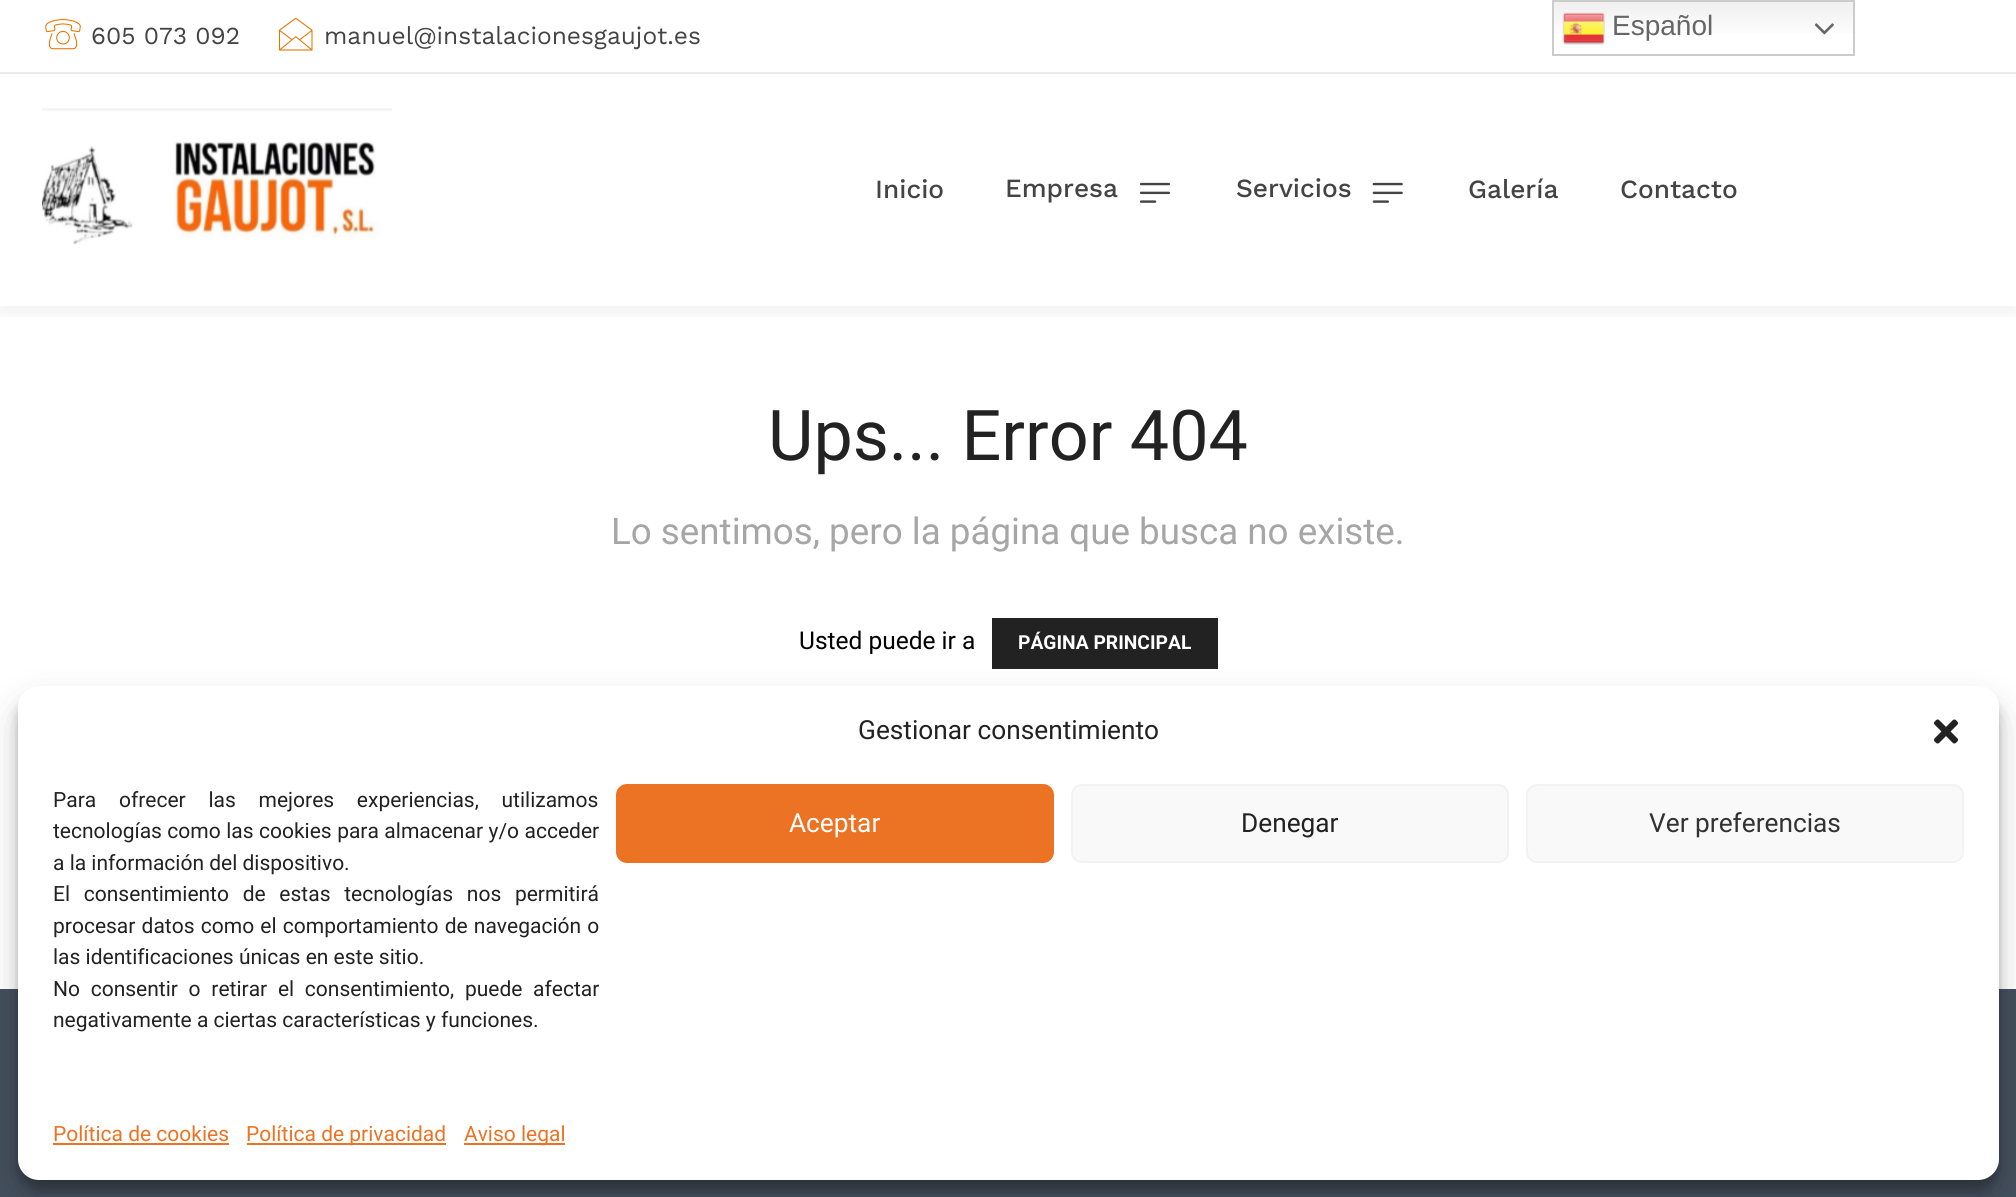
import math
import cairo


def write_spaced(ctx, x, y, s, letter, word):
	ctx.move_to(x, y)
	for ch in s:
		ctx.show_text(ch)
		ctx.rel_move_to(letter + word * (ch == ' '), 0)

def round_path(ctx, x, y, w, h, r):
	ctx.new_sub_path()
	for i, (u, v) in enumerate([(x + w - r, y + h - r), (x + r, y + h - r), (x + r, y + r), (x + w - r, y + r)]):
		ctx.arc(u, v, r, i * math.pi / 2, (i + 1) * math.pi / 2)
	ctx.close_path()

def blur_box(ctx, x, y, w, h, r, blur, alpha):
	ctx.push_group_with_content(cairo.CONTENT_ALPHA)
	ctx.set_operator(cairo.OPERATOR_SOURCE)
	for i in range(15, -16, -2):
		e = blur * i / 6
		if min(w, h) + 2 * e > 0:
			ctx.set_source_rgba(0, 0, 0, alpha * math.erfc((i - 1) / 8.5) / 2)
			round_path(ctx, x - e, y - e, w + 2 * e, h + 2 * e, max(0, min(r + e + blur * .6, min(w, h) / 2 + e)))
			ctx.fill()
	ctx.mask(ctx.pop_group())

def paste(ctx, path, x, y, w, h):
	ctx.save()
	ctx.set_source_surface(cairo.ImageSurface.create_from_png(path), x, y)
	ctx.rectangle(x, y, w, h)
	ctx.fill()
	ctx.restore()

def draw(ctx):
	ctx.set_source_rgb(1, 1, 1)
	ctx.paint()
	paste(ctx, 'media/3.png', 45, 19, 36, 31)
	paste(ctx, 'media/4.png', 278, 17, 35, 34)
	ctx.set_source_rgb(0.918, 0.918, 0.918)
	ctx.rectangle(0, 72, 2016, 2)
	ctx.fill()
	paste(ctx, 'media/5.png', 42, 108, 350, 137)
	ctx.save()
	ctx.rectangle(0, 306, 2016, 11)
	ctx.clip()
	ctx.set_source_rgb(0, 0, 0)
	blur_box(ctx, 0, 7, 2016, 306, 0, 9, 0.06)
	ctx.restore()
	gradient = cairo.LinearGradient(1704, 0, 1704, 56)
	gradient.add_color_stop_rgba(0, 0.937, 0.937, 0.937, 1)
	gradient.add_color_stop_rgba(0.7, 1, 1, 1, 1)
	ctx.set_source(gradient)
	ctx.rectangle(1554, 2, 299, 31)
	ctx.fill()
	ctx.rectangle(1553, 1, 301, 54)
	ctx.set_source_rgb(0.8, 0.8, 0.8)
	ctx.stroke()
	paste(ctx, 'media/1.png', 1562, 12, 43, 33)
	ctx.select_font_face('Liberation Sans')
	ctx.set_font_size(28)
	ctx.set_source_rgb(0.4, 0.4, 0.4)
	ctx.move_to(1612, 35)
	ctx.show_text('Español')
	paste(ctx, 'media/2.png', 1815, 23, 19, 12)
	ctx.select_font_face('Work Sans')
	ctx.set_font_size(24.5)
	ctx.set_source_rgb(0.267, 0.267, 0.267)
	ctx.move_to(91, 44)
	ctx.show_text('605 073 092')
	ctx.move_to(324, 44)
	ctx.show_text('manuel@instalacionesgaujot.es')
	ctx.select_font_face('Work Sans Medium')
	ctx.set_font_size(26.25)
	ctx.move_to(875, 198)
	ctx.show_text('Inicio')
	ctx.move_to(1005, 197)
	ctx.show_text('Empresa')
	paste(ctx, 'media/6.png', 1139, 182, 32, 21)
	ctx.move_to(1236, 197)
	ctx.show_text('Servicios')
	paste(ctx, 'media/7.png', 1372, 182, 31, 21)
	ctx.move_to(1468, 198)
	ctx.show_text('Galería')
	ctx.move_to(1620, 198)
	ctx.show_text('Contacto')
	ctx.select_font_face('Roboto')
	ctx.set_font_size(70)
	ctx.set_source_rgb(0.133, 0.133, 0.133)
	ctx.move_to(768, 460)
	ctx.show_text('Ups... Error 404')
	ctx.set_font_size(36.75)
	ctx.set_source_rgb(0.651, 0.651, 0.651)
	ctx.move_to(611, 544)
	ctx.show_text('Lo sentimos, pero la página que busca no existe.')
	ctx.set_font_size(24.5)
	ctx.set_source_rgb(0, 0, 0)
	ctx.move_to(799, 649)
	ctx.show_text('Usted puede ir a')
	ctx.set_source_rgb(0.133, 0.133, 0.133)
	ctx.rectangle(992, 618, 226, 51)
	ctx.fill()
	ctx.select_font_face('Roboto', cairo.FONT_SLANT_NORMAL, cairo.FONT_WEIGHT_BOLD)
	ctx.set_font_size(19.25)
	ctx.set_source_rgb(1, 1, 1)
	ctx.move_to(1018, 649)
	ctx.show_text('PÁGINA PRINCIPAL')
	ctx.set_source_rgb(0.267, 0.31, 0.365)
	ctx.rectangle(0, 989, 2016, 208)
	ctx.fill()
	ctx.set_source_rgb(0, 0, 0)
	blur_box(ctx, 18, 697, 1981, 493, 21, 5, 0.23)
	blur_box(ctx, 18, 704, 1981, 493, 21, 17.5, 0.19)
	ctx.set_source_rgb(1, 1, 1)
	round_path(ctx, 18, 686, 1981, 494, 21)
	ctx.fill()
	ctx.select_font_face('Roboto')
	ctx.set_font_size(26.25)
	ctx.set_source_rgb(0.133, 0.133, 0.133)
	ctx.move_to(858, 739)
	ctx.show_text('Gestionar consentimiento')
	paste(ctx, 'media/8.png', 1934, 719, 24, 25)
	ctx.set_font_size(21)
	write_spaced(ctx, 53, 807, 'Para ofrecer las mejores experiencias, utilizamos', 0, 17.5)
	write_spaced(ctx, 53, 838, 'tecnologías como las cookies para almacenar y/o acceder', 0, 0.25)
	ctx.move_to(53, 870)
	ctx.show_text('a la información del dispositivo.')
	write_spaced(ctx, 53, 901, 'El consentimiento de estas tecnologías nos permitirá', 0, 8.5)
	write_spaced(ctx, 53, 933, 'procesar datos como el comportamiento de navegación o', 0, 1)
	ctx.move_to(53, 964)
	ctx.show_text('las identificaciones únicas en este sitio.')
	write_spaced(ctx, 53, 996, 'No consentir o retirar el consentimiento, puede afectar', 0, 5.5)
	ctx.move_to(53, 1027)
	ctx.show_text('negativamente a ciertas características y funciones.')
	ctx.set_source_rgb(0.918, 0.451, 0.137)
	round_path(ctx, 617, 785, 436, 77, 10)
	ctx.fill_preserve()
	ctx.stroke()
	ctx.set_font_size(26.25)
	ctx.set_source_rgb(1, 1, 1)
	ctx.move_to(789, 832)
	ctx.show_text('Aceptar')
	ctx.set_source_rgb(0.976, 0.976, 0.976)
	round_path(ctx, 1072, 785, 436, 77, 10)
	ctx.fill_preserve()
	ctx.set_source_rgb(0.949, 0.949, 0.949)
	ctx.stroke()
	ctx.set_source_rgb(0.133, 0.133, 0.133)
	ctx.move_to(1241, 832)
	ctx.show_text('Denegar')
	ctx.set_source_rgb(0.976, 0.976, 0.976)
	round_path(ctx, 1527, 785, 436, 77, 10)
	ctx.fill_preserve()
	ctx.set_source_rgb(0.949, 0.949, 0.949)
	ctx.stroke()
	ctx.set_source_rgb(0.2, 0.2, 0.2)
	ctx.move_to(1649, 832)
	ctx.show_text('Ver preferencias')
	ctx.set_font_size(21)
	ctx.set_source_rgb(0.918, 0.451, 0.137)
	ctx.move_to(53, 1141)
	ctx.show_text('Política de cookies')
	ctx.rectangle(53, 1143, 176, 2)
	ctx.fill()
	ctx.rectangle(247, 1143, 199, 2)
	ctx.fill()
	ctx.move_to(246, 1141)
	ctx.show_text('Política de privacidad')
	ctx.rectangle(464, 1143, 101, 2)
	ctx.fill()
	ctx.move_to(464, 1141)
	ctx.show_text('Aviso legal')


surface = cairo.ImageSurface(cairo.FORMAT_RGB24, 2016, 1197)
ctx = cairo.Context(surface)
options = cairo.FontOptions()
options.set_hint_metrics(cairo.HINT_METRICS_OFF)
options.set_hint_style(cairo.HINT_STYLE_NONE)
ctx.set_font_options(options)
ctx.set_miter_limit(4)
draw(ctx)
surface.write_to_png('image.png')
